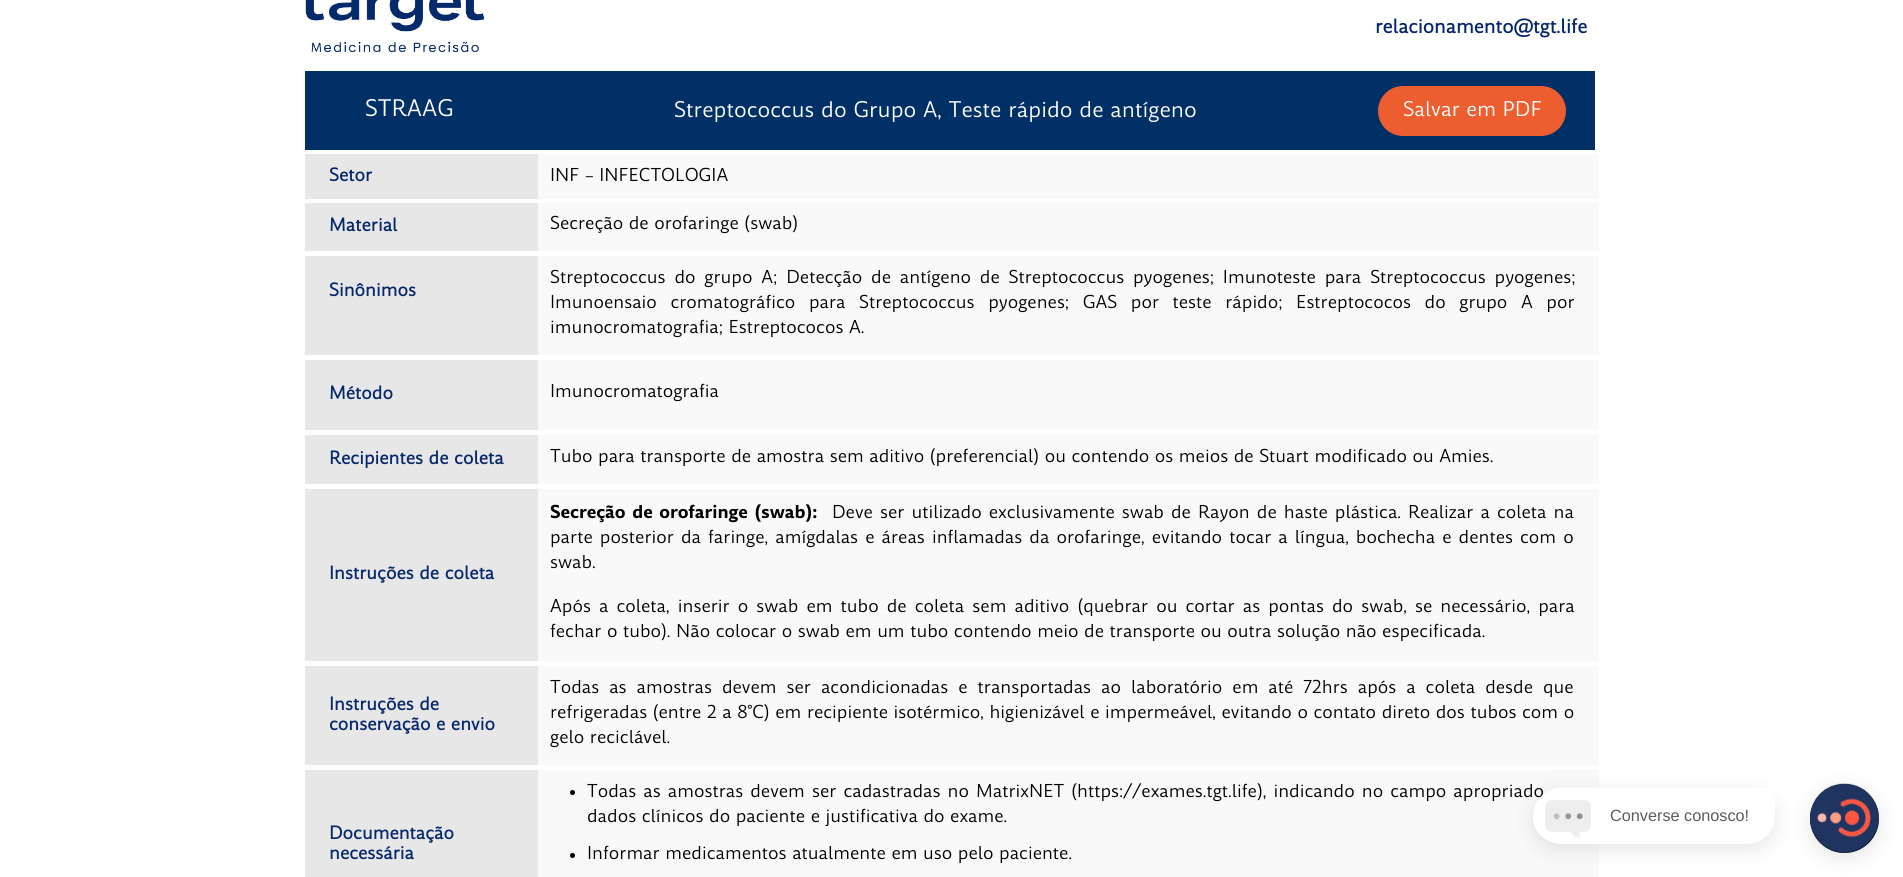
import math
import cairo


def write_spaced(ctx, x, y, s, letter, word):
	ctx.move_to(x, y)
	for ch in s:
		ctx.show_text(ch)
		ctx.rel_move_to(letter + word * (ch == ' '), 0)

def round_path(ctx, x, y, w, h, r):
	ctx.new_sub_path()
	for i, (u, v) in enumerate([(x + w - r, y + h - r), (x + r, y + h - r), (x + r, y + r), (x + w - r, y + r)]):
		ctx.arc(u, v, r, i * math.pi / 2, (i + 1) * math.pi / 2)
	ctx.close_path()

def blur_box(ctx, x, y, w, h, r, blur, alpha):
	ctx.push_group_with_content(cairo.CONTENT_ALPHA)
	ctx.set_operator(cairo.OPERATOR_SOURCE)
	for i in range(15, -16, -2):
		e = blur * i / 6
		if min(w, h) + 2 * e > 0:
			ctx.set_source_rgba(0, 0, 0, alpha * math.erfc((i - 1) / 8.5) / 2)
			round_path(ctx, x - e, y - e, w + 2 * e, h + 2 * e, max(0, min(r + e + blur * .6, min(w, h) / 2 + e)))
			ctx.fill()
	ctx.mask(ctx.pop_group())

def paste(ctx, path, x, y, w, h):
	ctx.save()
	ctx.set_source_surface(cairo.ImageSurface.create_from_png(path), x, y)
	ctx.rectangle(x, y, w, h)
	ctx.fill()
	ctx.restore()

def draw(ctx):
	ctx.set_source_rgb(1, 1, 1)
	ctx.paint()
	paste(ctx, 'media/1.png', 305, 0, 180, 52)
	ctx.select_font_face('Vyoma', cairo.FONT_SLANT_NORMAL, cairo.FONT_WEIGHT_BOLD)
	ctx.set_font_size(18.75)
	ctx.set_source_rgb(0.024, 0.153, 0.424)
	ctx.move_to(1375, 33)
	ctx.show_text('relacionamento@tgt.life')
	ctx.set_source_rgb(0.004, 0.188, 0.404)
	ctx.rectangle(305, 71, 1290, 79)
	ctx.fill()
	ctx.select_font_face('Vyoma')
	ctx.set_font_size(22.5)
	ctx.set_source_rgb(1, 1, 1)
	ctx.move_to(365, 116)
	ctx.show_text('STRAAG')
	ctx.set_font_size(21.25)
	ctx.move_to(674, 117)
	ctx.show_text('Streptococcus do Grupo A, Teste rápido de antígeno')
	ctx.set_source_rgb(0.922, 0.369, 0.184)
	round_path(ctx, 1378, 86, 188, 50, 25)
	ctx.fill()
	ctx.set_font_size(20)
	ctx.set_source_rgb(1, 1, 1)
	ctx.move_to(1403, 116)
	ctx.show_text('Salvar em PDF')
	ctx.set_source_rgb(0.906, 0.906, 0.906)
	ctx.rectangle(305, 154, 233, 45)
	ctx.fill()
	ctx.select_font_face('Vyoma', cairo.FONT_SLANT_NORMAL, cairo.FONT_WEIGHT_BOLD)
	ctx.set_font_size(17.5)
	ctx.set_source_rgb(0.024, 0.153, 0.424)
	ctx.move_to(329, 181)
	ctx.show_text('Setor')
	ctx.set_source_rgb(0.976, 0.976, 0.976)
	ctx.rectangle(538, 154, 1061, 45)
	ctx.fill()
	ctx.select_font_face('Vyoma')
	ctx.set_source_rgb(0, 0, 0)
	ctx.move_to(550, 181)
	ctx.show_text('INF – INFECTOLOGIA')
	ctx.set_source_rgb(0.906, 0.906, 0.906)
	ctx.rectangle(305, 203, 233, 48)
	ctx.fill()
	ctx.select_font_face('Vyoma', cairo.FONT_SLANT_NORMAL, cairo.FONT_WEIGHT_BOLD)
	ctx.set_source_rgb(0.024, 0.153, 0.424)
	ctx.move_to(329, 231)
	ctx.show_text('Material')
	ctx.set_source_rgb(0.976, 0.976, 0.976)
	ctx.rectangle(538, 203, 1061, 48)
	ctx.fill()
	ctx.select_font_face('Vyoma')
	ctx.set_source_rgb(0, 0, 0)
	ctx.move_to(550, 229)
	ctx.show_text('Secreção de orofaringe (swab)')
	ctx.set_source_rgb(0.906, 0.906, 0.906)
	ctx.rectangle(305, 256, 233, 99)
	ctx.fill()
	ctx.select_font_face('Vyoma', cairo.FONT_SLANT_NORMAL, cairo.FONT_WEIGHT_BOLD)
	ctx.set_source_rgb(0.024, 0.153, 0.424)
	ctx.move_to(329, 296)
	ctx.show_text('Sinônimos')
	ctx.set_source_rgb(0.976, 0.976, 0.976)
	ctx.rectangle(538, 256, 1061, 99)
	ctx.fill()
	ctx.select_font_face('Vyoma')
	ctx.set_source_rgb(0, 0, 0)
	write_spaced(ctx, 550, 283, 'Streptococcus do grupo A; Detecção de antígeno de Streptococcus pyogenes; Imunoteste para Streptococcus pyogenes;', 0, 3.25)
	write_spaced(ctx, 550, 308, 'Imunoensaio cromatográfico para Streptococcus pyogenes; GAS por teste rápido; Estreptococos do grupo A por', 0, 8)
	ctx.move_to(550, 333)
	ctx.show_text('imunocromatografia; Estreptococos A.')
	ctx.set_source_rgb(0.906, 0.906, 0.906)
	ctx.rectangle(305, 360, 233, 70)
	ctx.fill()
	ctx.select_font_face('Vyoma', cairo.FONT_SLANT_NORMAL, cairo.FONT_WEIGHT_BOLD)
	ctx.set_source_rgb(0.024, 0.153, 0.424)
	ctx.move_to(329, 399)
	ctx.show_text('Método')
	ctx.set_source_rgb(0.976, 0.976, 0.976)
	ctx.rectangle(538, 360, 1061, 70)
	ctx.fill()
	ctx.select_font_face('Vyoma')
	ctx.set_source_rgb(0, 0, 0)
	ctx.move_to(550, 397)
	ctx.show_text('Imunocromatografia')
	ctx.set_source_rgb(0.906, 0.906, 0.906)
	ctx.rectangle(305, 435, 233, 49)
	ctx.fill()
	ctx.select_font_face('Vyoma', cairo.FONT_SLANT_NORMAL, cairo.FONT_WEIGHT_BOLD)
	ctx.set_source_rgb(0.024, 0.153, 0.424)
	ctx.move_to(329, 464)
	ctx.show_text('Recipientes de coleta')
	ctx.set_source_rgb(0.976, 0.976, 0.976)
	ctx.rectangle(538, 435, 1061, 49)
	ctx.fill()
	ctx.select_font_face('Vyoma')
	ctx.set_source_rgb(0, 0, 0)
	ctx.move_to(550, 462)
	ctx.show_text('Tubo para transporte de amostra sem aditivo (preferencial) ou contendo os meios de Stuart modificado ou Amies.')
	ctx.set_source_rgb(0.906, 0.906, 0.906)
	ctx.rectangle(305, 489, 233, 172)
	ctx.fill()
	ctx.select_font_face('Vyoma', cairo.FONT_SLANT_NORMAL, cairo.FONT_WEIGHT_BOLD)
	ctx.set_source_rgb(0.024, 0.153, 0.424)
	ctx.move_to(329, 579)
	ctx.show_text('Instruções de coleta')
	ctx.set_source_rgb(0.976, 0.976, 0.976)
	ctx.rectangle(538, 489, 1061, 172)
	ctx.fill()
	ctx.select_font_face('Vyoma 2', cairo.FONT_SLANT_NORMAL, cairo.FONT_WEIGHT_BOLD)
	ctx.set_source_rgb(0, 0, 0)
	write_spaced(ctx, 550, 518, 'Secreção de orofaringe (swab):', 0, 1.5)
	ctx.select_font_face('Vyoma')
	write_spaced(ctx, 832, 518, 'Deve ser utilizado exclusivamente swab de Rayon de haste plástica. Realizar a coleta na', 0, 1.5)
	write_spaced(ctx, 550, 543, 'parte posterior da faringe, amígdalas e áreas inflamadas da orofaringe, evitando tocar a língua, bochecha e dentes com o', 0, 1.5)
	ctx.move_to(550, 568)
	ctx.show_text('swab.')
	write_spaced(ctx, 550, 612, 'Após a coleta, inserir o swab em tubo de coleta sem aditivo (quebrar ou cortar as pontas do swab, se necessário, para', 0, 2.5)
	ctx.move_to(550, 637)
	ctx.show_text('fechar o tubo). Não colocar o swab em um tubo contendo meio de transporte ou outra solução não especificada.')
	ctx.set_source_rgb(0.906, 0.906, 0.906)
	ctx.rectangle(305, 666, 233, 99)
	ctx.fill()
	ctx.select_font_face('Vyoma', cairo.FONT_SLANT_NORMAL, cairo.FONT_WEIGHT_BOLD)
	ctx.set_source_rgb(0.024, 0.153, 0.424)
	ctx.move_to(329, 710)
	ctx.show_text('Instruções de')
	ctx.move_to(329, 730)
	ctx.show_text('conservação e envio')
	ctx.set_source_rgb(0.976, 0.976, 0.976)
	ctx.rectangle(538, 666, 1061, 99)
	ctx.fill()
	ctx.select_font_face('Vyoma')
	ctx.set_source_rgb(0, 0, 0)
	write_spaced(ctx, 550, 693, 'Todas as amostras devem ser acondicionadas e transportadas ao laboratório em até 72hrs após a coleta desde que', 0, 4.4)
	ctx.move_to(550, 718)
	ctx.show_text('refrigeradas (entre 2 a 8°C) em recipiente isotérmico, higienizável e impermeável, evitando o contato direto dos tubos com o')
	ctx.move_to(550, 743)
	ctx.show_text('gelo reciclável.')
	ctx.set_source_rgb(0.906, 0.906, 0.906)
	ctx.rectangle(305, 770, 233, 107)
	ctx.fill()
	ctx.select_font_face('Vyoma', cairo.FONT_SLANT_NORMAL, cairo.FONT_WEIGHT_BOLD)
	ctx.set_source_rgb(0.024, 0.153, 0.424)
	ctx.move_to(329, 839)
	ctx.show_text('Documentação')
	ctx.move_to(329, 859)
	ctx.show_text('necessária')
	ctx.set_source_rgb(0.976, 0.976, 0.976)
	ctx.rectangle(538, 770, 1061, 107)
	ctx.fill()
	ctx.set_source_rgb(0, 0, 0)
	ctx.arc(572.5, 792.5, 2.5, 0, 2 * math.pi)
	ctx.fill()
	ctx.select_font_face('Vyoma')
	write_spaced(ctx, 587, 797, 'Todas as amostras devem ser cadastradas no MatrixNET (https://exames.tgt.life), indicando no campo apropriado', 0, 1.5)
	ctx.move_to(587, 822)
	ctx.show_text('dados clínicos do paciente e justificativa do exame.')
	ctx.new_path()
	ctx.arc(572.5, 855.5, 2.5, 0, 2 * math.pi)
	ctx.fill()
	ctx.move_to(587, 859)
	ctx.show_text('Informar medicamentos atualmente em uso pelo paciente.')
	ctx.set_source_rgb(0, 0, 0)
	blur_box(ctx, 1533, 793, 242, 56, 28, 10, 0.1)
	ctx.set_source_rgb(1, 1, 1)
	ctx.new_path()
	ctx.move_to(1561, 788)
	ctx.line_to(1775, 788)
	ctx.line_to(1775, 816)
	ctx.curve_to(1775, 831.5, 1762.5, 844, 1747, 844)
	ctx.line_to(1561, 844)
	ctx.curve_to(1545.5, 844, 1533, 831.5, 1533, 816)
	ctx.curve_to(1533, 800.5, 1545.5, 788, 1561, 788)
	ctx.close_path()
	ctx.fill()
	paste(ctx, 'media/2.png', 1545, 800, 46, 38)
	ctx.select_font_face('Liberation Sans')
	ctx.set_font_size(16.25)
	ctx.set_source_rgb(0.361, 0.361, 0.361)
	ctx.move_to(1610, 821)
	ctx.show_text('Converse conosco!')
	ctx.set_source_rgb(0, 0, 0)
	blur_box(ctx, 1810, 789, 69, 69, 34.5, 10, 0.1)
	ctx.set_source_rgb(0, 0, 0)
	ctx.arc(1844.5, 818.5, 34.5, 0, 2 * math.pi)
	ctx.fill()
	paste(ctx, 'media/3.png', 1810, 783, 69, 70)


surface = cairo.ImageSurface(cairo.FORMAT_RGB24, 1903, 877)
ctx = cairo.Context(surface)
options = cairo.FontOptions()
options.set_hint_metrics(cairo.HINT_METRICS_OFF)
options.set_hint_style(cairo.HINT_STYLE_NONE)
ctx.set_font_options(options)
ctx.set_miter_limit(4)
draw(ctx)
surface.write_to_png('image.png')
